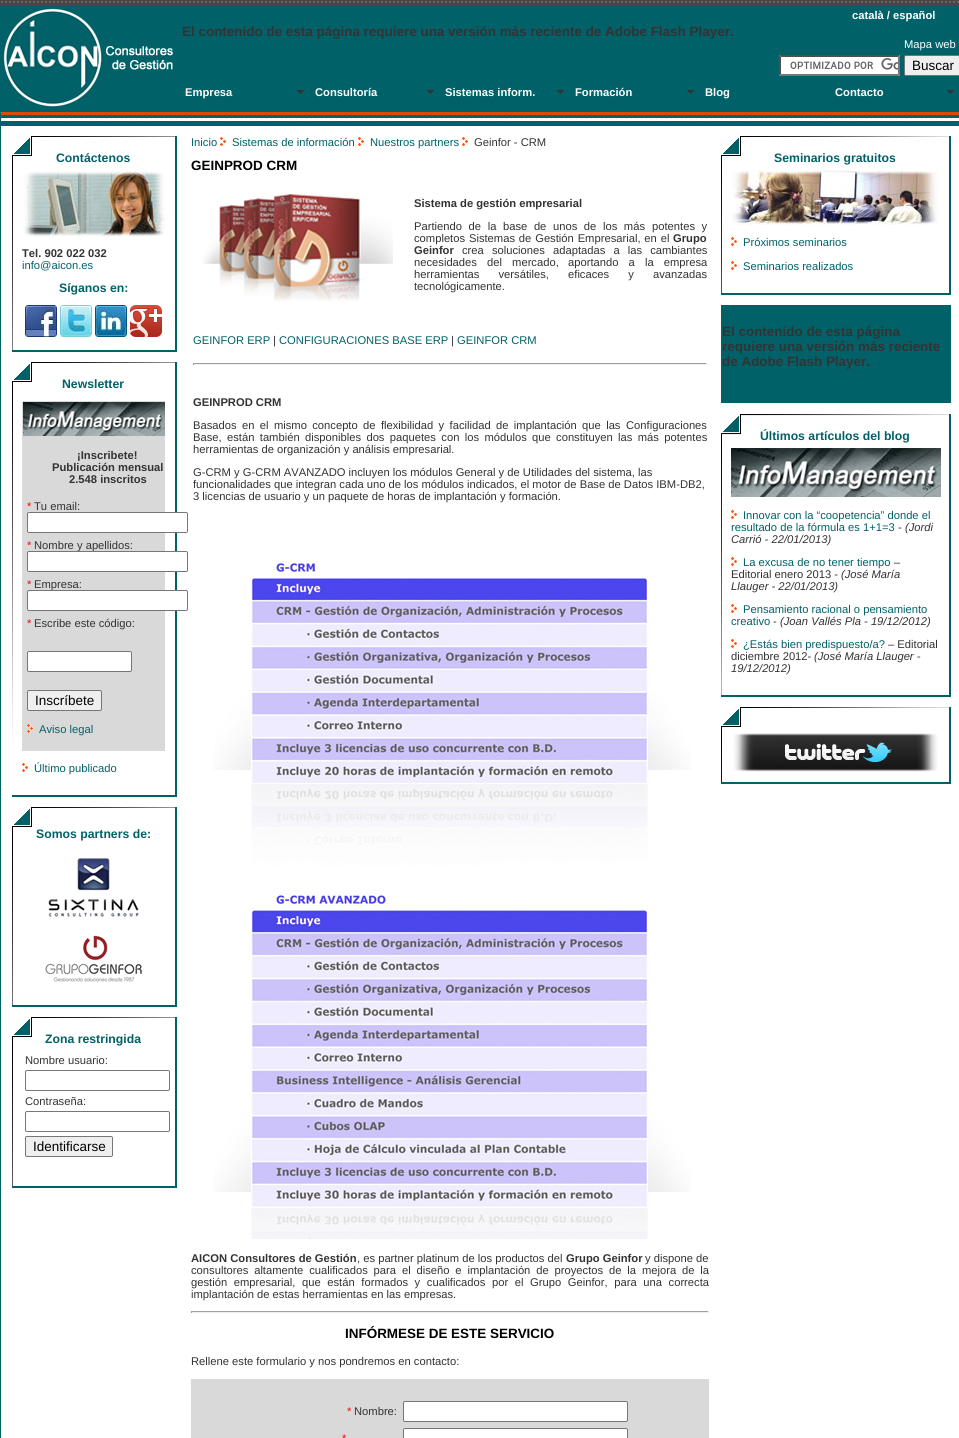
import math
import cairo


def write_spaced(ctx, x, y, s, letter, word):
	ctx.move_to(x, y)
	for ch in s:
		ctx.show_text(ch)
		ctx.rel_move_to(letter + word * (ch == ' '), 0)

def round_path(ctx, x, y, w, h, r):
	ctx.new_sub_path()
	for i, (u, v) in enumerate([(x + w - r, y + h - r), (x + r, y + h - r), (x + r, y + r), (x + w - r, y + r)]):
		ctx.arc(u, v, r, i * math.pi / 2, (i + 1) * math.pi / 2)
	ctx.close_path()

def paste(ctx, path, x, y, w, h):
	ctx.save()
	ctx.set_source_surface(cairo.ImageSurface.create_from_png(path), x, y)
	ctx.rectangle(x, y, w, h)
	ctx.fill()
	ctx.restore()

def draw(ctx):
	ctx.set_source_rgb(1, 1, 1)
	ctx.paint()
	paste(ctx, 'media/1.png', 0, 0, 959, 5)
	ctx.set_source_rgb(0, 0.38, 0.408)
	ctx.rectangle(0, 5, 959, 1)
	ctx.fill()
	ctx.rectangle(0, 5, 1, 1433)
	ctx.fill()
	paste(ctx, 'media/2.png', 1, 6, 958, 120)
	ctx.select_font_face('Liberation Sans', cairo.FONT_SLANT_NORMAL, cairo.FONT_WEIGHT_BOLD)
	ctx.set_font_size(11.2)
	ctx.set_source_rgb(1, 1, 1)
	ctx.move_to(852, 19)
	ctx.show_text('català / español')
	ctx.set_font_size(13.45)
	ctx.set_source_rgb(0.2, 0.2, 0.2)
	ctx.move_to(182, 36)
	ctx.show_text('El contenido de esta página requiere una versión más reciente de Adobe Flash Player.')
	paste(ctx, 'media/3.png', 3, 8, 173, 100)
	ctx.select_font_face('Liberation Sans')
	ctx.set_font_size(11.2)
	ctx.set_source_rgb(1, 1, 1)
	ctx.move_to(904, 48)
	ctx.show_text('Mapa web')
	ctx.rectangle(779, 55, 121, 21)
	ctx.fill()
	paste(ctx, 'media/4.png', 790, 58, 108, 12)
	ctx.set_source_rgb(0.31, 0.31, 0.31)
	ctx.new_path()
	ctx.move_to(779, 55)
	ctx.line_to(900, 55)
	ctx.line_to(898, 57)
	ctx.line_to(781, 57)
	ctx.close_path()
	ctx.fill()
	ctx.set_source_rgb(0.463, 0.463, 0.463)
	ctx.new_path()
	ctx.move_to(900, 55)
	ctx.line_to(900, 76)
	ctx.line_to(898, 74)
	ctx.line_to(898, 57)
	ctx.close_path()
	ctx.fill()
	ctx.new_path()
	ctx.move_to(900, 76)
	ctx.line_to(779, 76)
	ctx.line_to(781, 74)
	ctx.line_to(898, 74)
	ctx.close_path()
	ctx.fill()
	ctx.set_source_rgb(0.31, 0.31, 0.31)
	ctx.new_path()
	ctx.move_to(779, 76)
	ctx.line_to(779, 55)
	ctx.line_to(781, 57)
	ctx.line_to(781, 74)
	ctx.close_path()
	ctx.fill()
	ctx.set_source_rgb(0.937, 0.937, 0.937)
	round_path(ctx, 904.5, 55.5, 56, 20, 1.5)
	ctx.fill_preserve()
	ctx.set_source_rgb(0.463, 0.463, 0.463)
	ctx.set_line_width(1)
	ctx.stroke()
	ctx.set_font_size(13.5)
	ctx.set_source_rgb(0, 0, 0)
	ctx.move_to(912, 70)
	ctx.show_text('Buscar')
	paste(ctx, 'media/5.png', 297, 90, 7, 4)
	ctx.select_font_face('Liberation Sans', cairo.FONT_SLANT_NORMAL, cairo.FONT_WEIGHT_BOLD)
	ctx.set_font_size(11.2)
	ctx.set_source_rgb(1, 1, 1)
	ctx.move_to(185, 96)
	ctx.show_text('Empresa')
	paste(ctx, 'media/5.png', 427, 90, 7, 4)
	ctx.move_to(315, 96)
	ctx.show_text('Consultoría')
	paste(ctx, 'media/5.png', 557, 90, 7, 4)
	ctx.move_to(445, 96)
	ctx.show_text('Sistemas inform.')
	paste(ctx, 'media/5.png', 687, 90, 7, 4)
	ctx.move_to(575, 96)
	ctx.show_text('Formación')
	ctx.move_to(705, 96)
	ctx.show_text('Blog')
	paste(ctx, 'media/5.png', 947, 90, 7, 4)
	ctx.move_to(835, 96)
	ctx.show_text('Contacto')
	paste(ctx, 'media/6.png', 12, 136, 163, 214)
	ctx.set_source_rgb(0, 0.38, 0.408)
	ctx.rectangle(175, 136, 2, 216)
	ctx.fill()
	ctx.rectangle(12, 350, 165, 2)
	ctx.fill()
	ctx.set_font_size(12.25)
	ctx.move_to(56, 162)
	ctx.show_text('Contáctenos')
	paste(ctx, 'media/7.png', 22, 170, 144, 67)
	ctx.set_font_size(11.2)
	ctx.set_source_rgb(0.2, 0.2, 0.2)
	ctx.move_to(22, 257)
	ctx.show_text('Tel. 902 022 032')
	ctx.select_font_face('Liberation Sans')
	ctx.set_source_rgb(0, 0.38, 0.408)
	ctx.move_to(22, 269)
	ctx.show_text('info@aicon.es')
	ctx.select_font_face('Liberation Sans', cairo.FONT_SLANT_NORMAL, cairo.FONT_WEIGHT_BOLD)
	ctx.set_font_size(12.25)
	ctx.move_to(59, 292)
	ctx.show_text('Síganos en:')
	paste(ctx, 'media/8.png', 25, 305, 32, 32)
	paste(ctx, 'media/9.png', 60, 305, 32, 32)
	paste(ctx, 'media/10.png', 95, 305, 32, 32)
	paste(ctx, 'media/11.png', 130, 305, 32, 32)
	paste(ctx, 'media/12.png', 12, 362, 163, 381)
	ctx.rectangle(175, 362, 2, 435)
	ctx.fill()
	ctx.rectangle(12, 795, 165, 2)
	ctx.fill()
	ctx.move_to(62, 388)
	ctx.show_text('Newsletter')
	ctx.set_source_rgb(0.851, 0.851, 0.851)
	ctx.rectangle(22, 401, 143, 350)
	ctx.fill()
	paste(ctx, 'media/13.png', 23, 402, 142, 34)
	ctx.set_font_size(11.2)
	ctx.set_source_rgb(0.2, 0.2, 0.2)
	for x, y, s in [
		(77, 459, '¡Inscribete!'),
		(52, 471, 'Publicación mensual'),
		(69, 483, '2.548 inscritos'),
	]:
		ctx.move_to(x, y)
		ctx.show_text(s)
	ctx.select_font_face('Liberation Sans')
	ctx.set_source_rgb(1, 0, 0)
	ctx.move_to(27, 510)
	ctx.show_text('*')
	ctx.set_source_rgb(0.2, 0.2, 0.2)
	ctx.move_to(34, 510)
	ctx.show_text('Tu email:')
	ctx.set_source_rgb(1, 1, 1)
	round_path(ctx, 27.5, 512.5, 160, 20, 1.5)
	ctx.fill_preserve()
	ctx.set_source_rgb(0.463, 0.463, 0.463)
	ctx.stroke()
	ctx.set_source_rgb(1, 0, 0)
	ctx.move_to(27, 549)
	ctx.show_text('*')
	ctx.set_source_rgb(0.2, 0.2, 0.2)
	ctx.move_to(34, 549)
	ctx.show_text('Nombre y apellidos:')
	ctx.set_source_rgb(1, 1, 1)
	round_path(ctx, 27.5, 551.5, 160, 20, 1.5)
	ctx.fill_preserve()
	ctx.set_source_rgb(0.463, 0.463, 0.463)
	ctx.stroke()
	ctx.set_source_rgb(1, 0, 0)
	ctx.move_to(27, 588)
	ctx.show_text('*')
	ctx.set_source_rgb(0.2, 0.2, 0.2)
	ctx.move_to(34, 588)
	ctx.show_text('Empresa:')
	ctx.set_source_rgb(1, 1, 1)
	round_path(ctx, 27.5, 590.5, 160, 20, 1.5)
	ctx.fill_preserve()
	ctx.set_source_rgb(0.463, 0.463, 0.463)
	ctx.stroke()
	ctx.set_source_rgb(1, 0, 0)
	ctx.move_to(27, 627)
	ctx.show_text('*')
	ctx.set_source_rgb(0.2, 0.2, 0.2)
	ctx.move_to(34, 627)
	ctx.show_text('Escribe este código:')
	ctx.set_source_rgb(1, 1, 1)
	round_path(ctx, 27.5, 651.5, 104, 20, 1.5)
	ctx.fill_preserve()
	ctx.set_source_rgb(0.463, 0.463, 0.463)
	ctx.stroke()
	ctx.set_source_rgb(0.937, 0.937, 0.937)
	round_path(ctx, 27.5, 690.5, 74, 20, 1.5)
	ctx.fill_preserve()
	ctx.set_source_rgb(0.463, 0.463, 0.463)
	ctx.stroke()
	ctx.set_font_size(13.5)
	ctx.set_source_rgb(0, 0, 0)
	ctx.move_to(35, 705)
	ctx.show_text('Inscríbete')
	paste(ctx, 'media/14.png', 27, 724, 7, 9)
	ctx.set_font_size(11.2)
	ctx.set_source_rgb(0, 0.38, 0.408)
	ctx.move_to(39, 733)
	ctx.show_text('Aviso legal')
	paste(ctx, 'media/15.png', 22, 763, 6, 9)
	ctx.move_to(34, 772)
	ctx.show_text('Último publicado')
	paste(ctx, 'media/16.png', 12, 807, 163, 198)
	ctx.rectangle(175, 807, 2, 200)
	ctx.fill()
	ctx.rectangle(12, 1005, 165, 2)
	ctx.fill()
	ctx.select_font_face('Liberation Sans', cairo.FONT_SLANT_NORMAL, cairo.FONT_WEIGHT_BOLD)
	ctx.set_font_size(12.25)
	ctx.move_to(36, 838)
	ctx.show_text('Somos partners de:')
	paste(ctx, 'media/17.png', 48, 856, 91, 63)
	paste(ctx, 'media/18.png', 45, 933, 97, 49)
	paste(ctx, 'media/19.png', 12, 1017, 163, 169)
	ctx.rectangle(175, 1017, 2, 171)
	ctx.fill()
	ctx.rectangle(12, 1186, 165, 2)
	ctx.fill()
	ctx.move_to(45, 1043)
	ctx.show_text('Zona restringida')
	ctx.select_font_face('Liberation Sans')
	ctx.set_font_size(11.2)
	ctx.set_source_rgb(0.2, 0.2, 0.2)
	ctx.move_to(25, 1064)
	ctx.show_text('Nombre usuario:')
	round_path(ctx, 25.5, 1070.5, 144, 20, 1.5)
	ctx.set_source_rgb(0.463, 0.463, 0.463)
	ctx.stroke()
	ctx.set_source_rgb(0.2, 0.2, 0.2)
	ctx.move_to(25, 1105)
	ctx.show_text('Contraseña:')
	round_path(ctx, 25.5, 1111.5, 144, 20, 1.5)
	ctx.set_source_rgb(0.463, 0.463, 0.463)
	ctx.stroke()
	ctx.set_source_rgb(0.937, 0.937, 0.937)
	round_path(ctx, 25.5, 1136.5, 87, 20, 1.5)
	ctx.fill_preserve()
	ctx.set_source_rgb(0.463, 0.463, 0.463)
	ctx.stroke()
	ctx.set_font_size(13.5)
	ctx.set_source_rgb(0, 0, 0)
	ctx.move_to(33, 1151)
	ctx.show_text('Identificarse')
	ctx.set_font_size(11.2)
	ctx.set_source_rgb(0, 0.38, 0.408)
	ctx.move_to(191, 146)
	ctx.show_text('Inicio')
	paste(ctx, 'media/20.png', 220, 137, 6, 9)
	ctx.move_to(232, 146)
	ctx.show_text('Sistemas de información')
	paste(ctx, 'media/20.png', 358, 137, 6, 9)
	ctx.move_to(370, 146)
	ctx.show_text('Nuestros partners')
	paste(ctx, 'media/20.png', 462, 137, 6, 9)
	ctx.set_source_rgb(0.2, 0.2, 0.2)
	ctx.move_to(474, 146)
	ctx.show_text('Geinfor - CRM')
	ctx.select_font_face('Liberation Sans', cairo.FONT_SLANT_NORMAL, cairo.FONT_WEIGHT_BOLD)
	ctx.set_font_size(13.45)
	ctx.set_source_rgb(0, 0, 0)
	ctx.move_to(191, 170)
	ctx.show_text('GEINPROD CRM')
	paste(ctx, 'media/21.png', 202, 193, 191, 109)
	ctx.set_font_size(11.2)
	ctx.set_source_rgb(0.2, 0.2, 0.2)
	ctx.move_to(414, 207)
	ctx.show_text('Sistema de gestión empresarial')
	ctx.select_font_face('Liberation Sans')
	write_spaced(ctx, 414, 230, 'Partiendo de la base de unos de los más', 0, 3.5)
	write_spaced(ctx, 652, 230, 'potentes y', 0, 3.5)
	write_spaced(ctx, 414, 242, 'completos Sistemas de Gestión Empresarial, en el', 0, 0.75)
	ctx.select_font_face('Liberation Sans', cairo.FONT_SLANT_NORMAL, cairo.FONT_WEIGHT_BOLD)
	ctx.move_to(673, 242)
	ctx.show_text('Grupo')
	ctx.move_to(414, 254)
	ctx.show_text('Geinfor')
	ctx.select_font_face('Liberation Sans')
	write_spaced(ctx, 462, 254, 'crea soluciones adaptadas a las cambiantes', 0, 5)
	write_spaced(ctx, 414, 266, 'necesidades del mercado,', 0, 7)
	write_spaced(ctx, 568, 266, 'aportando a la empresa', 0, 7)
	write_spaced(ctx, 414, 278, 'herramientas versátiles, eficaces y avanzadas', 0, 16)
	ctx.move_to(414, 290)
	ctx.show_text('tecnológicamente.')
	ctx.set_source_rgb(0, 0.38, 0.408)
	ctx.move_to(193, 344)
	ctx.show_text('GEINFOR ERP')
	ctx.set_source_rgb(0.2, 0.2, 0.2)
	ctx.move_to(273, 344)
	ctx.show_text('|')
	ctx.set_source_rgb(0, 0.38, 0.408)
	ctx.move_to(279, 344)
	ctx.show_text('CONFIGURACIONES BASE ERP')
	ctx.set_source_rgb(0.2, 0.2, 0.2)
	ctx.move_to(451, 344)
	ctx.show_text('|')
	ctx.set_source_rgb(0, 0.38, 0.408)
	ctx.move_to(457, 344)
	ctx.show_text('GEINFOR CRM')
	ctx.set_source_rgb(0.624, 0.624, 0.624)
	ctx.rectangle(193, 363, 514, 1)
	ctx.fill()
	ctx.set_source_rgb(0.933, 0.933, 0.933)
	ctx.rectangle(706, 363, 1, 2)
	ctx.rectangle(193, 364, 514, 1)
	ctx.fill()
	ctx.set_source_rgb(0.624, 0.624, 0.624)
	ctx.rectangle(193, 363, 1, 2)
	ctx.fill()
	ctx.select_font_face('Liberation Sans', cairo.FONT_SLANT_NORMAL, cairo.FONT_WEIGHT_BOLD)
	ctx.set_source_rgb(0.2, 0.2, 0.2)
	ctx.move_to(193, 406)
	ctx.show_text('GEINPROD CRM')
	ctx.select_font_face('Liberation Sans')
	ctx.move_to(193, 429)
	ctx.show_text('Basados')
	write_spaced(ctx, 242, 429, 'en el mismo concepto de flexibilidad y facilidad de implantación que las', 0, 2.25)
	ctx.move_to(626, 429)
	ctx.show_text('Configuraciones')
	write_spaced(ctx, 193, 441, 'Base, están también disponibles dos paquetes con los módulos', 0, 2.25)
	write_spaced(ctx, 532, 441, 'que constituyen las más potentes', 0, 2.25)
	for x, y, s in [
		(193, 453, 'herramientas de organización y análisis empresarial.'),
		(193, 476, 'G-CRM y G-CRM AVANZADO incluyen los módulos General y de Utilidades del sistema, las'),
		(193, 488, 'funcionalidades que integran cada uno de los módulos indicados, el motor de Base de Datos IBM-DB2,'),
		(193, 500, '3 licencias de usuario y un paquete de horas de implantación y formación.'),
	]:
		ctx.move_to(x, y)
		ctx.show_text(s)
	paste(ctx, 'media/22.png', 214, 561, 477, 678)
	ctx.select_font_face('Liberation Sans', cairo.FONT_SLANT_NORMAL, cairo.FONT_WEIGHT_BOLD)
	ctx.move_to(191, 1262)
	ctx.show_text('AICON Consultores de Gestión')
	ctx.select_font_face('Liberation Sans')
	ctx.move_to(357, 1262)
	ctx.show_text(', es partner platinum de los productos del')
	ctx.select_font_face('Liberation Sans', cairo.FONT_SLANT_NORMAL, cairo.FONT_WEIGHT_BOLD)
	ctx.move_to(566, 1262)
	ctx.show_text('Grupo Geinfor')
	ctx.select_font_face('Liberation Sans')
	ctx.move_to(645, 1262)
	ctx.show_text('y dispone de')
	write_spaced(ctx, 191, 1274, 'consultores altamente cualificados para el diseño e implantación de proyectos', 0, 2.75)
	write_spaced(ctx, 609, 1274, 'de la mejora de la', 0, 2.75)
	write_spaced(ctx, 191, 1286, 'gestión empresarial, que están formados y cualificados por el', 0, 3.5)
	write_spaced(ctx, 530, 1286, 'Grupo Geinfor, para una correcta', 0, 3.5)
	ctx.move_to(191, 1298)
	ctx.show_text('implantación de estas herramientas en las empresas.')
	ctx.set_source_rgb(0.624, 0.624, 0.624)
	ctx.rectangle(191, 1311, 518, 1)
	ctx.fill()
	ctx.set_source_rgb(0.933, 0.933, 0.933)
	ctx.rectangle(708, 1311, 1, 2)
	ctx.rectangle(191, 1312, 518, 1)
	ctx.fill()
	ctx.set_source_rgb(0.624, 0.624, 0.624)
	ctx.rectangle(191, 1311, 1, 2)
	ctx.fill()
	ctx.select_font_face('Liberation Sans', cairo.FONT_SLANT_NORMAL, cairo.FONT_WEIGHT_BOLD)
	ctx.set_font_size(13.45)
	ctx.set_source_rgb(0, 0, 0)
	ctx.move_to(345, 1338)
	ctx.show_text('INFÓRMESE DE ESTE SERVICIO')
	ctx.select_font_face('Liberation Sans')
	ctx.set_font_size(11.2)
	ctx.set_source_rgb(0.2, 0.2, 0.2)
	ctx.move_to(191, 1365)
	ctx.show_text('Rellene este formulario y nos pondremos en contacto:')
	ctx.set_source_rgb(0.851, 0.851, 0.851)
	ctx.rectangle(191, 1379, 518, 59)
	ctx.fill()
	ctx.set_source_rgb(1, 0, 0)
	ctx.move_to(347, 1415)
	ctx.show_text('*')
	ctx.set_source_rgb(0.2, 0.2, 0.2)
	ctx.move_to(354, 1415)
	ctx.show_text('Nombre:')
	ctx.set_source_rgb(1, 1, 1)
	round_path(ctx, 403.5, 1401.5, 224, 20, 1.5)
	ctx.fill_preserve()
	ctx.set_source_rgb(0.463, 0.463, 0.463)
	ctx.stroke()
	ctx.set_source_rgb(1, 0, 0)
	ctx.move_to(342, 1442)
	ctx.show_text('*')
	ctx.set_source_rgb(1, 1, 1)
	round_path(ctx, 403.5, 1428.5, 224, 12, 1.5)
	ctx.fill_preserve()
	ctx.set_source_rgb(0.463, 0.463, 0.463)
	ctx.stroke()
	paste(ctx, 'media/23.png', 721, 136, 228, 157)
	ctx.set_source_rgb(0, 0.38, 0.408)
	ctx.rectangle(949, 136, 2, 159)
	ctx.fill()
	ctx.rectangle(721, 293, 230, 2)
	ctx.fill()
	ctx.select_font_face('Liberation Sans', cairo.FONT_SLANT_NORMAL, cairo.FONT_WEIGHT_BOLD)
	ctx.set_font_size(12.25)
	ctx.move_to(774, 162)
	ctx.show_text('Seminarios gratuitos')
	paste(ctx, 'media/24.png', 731, 170, 208, 55)
	paste(ctx, 'media/20.png', 731, 237, 6, 9)
	ctx.select_font_face('Liberation Sans')
	ctx.set_font_size(11.2)
	ctx.move_to(743, 246)
	ctx.show_text('Próximos seminarios')
	paste(ctx, 'media/20.png', 731, 261, 6, 9)
	ctx.move_to(743, 270)
	ctx.show_text('Seminarios realizados')
	ctx.rectangle(721, 305, 230, 98)
	ctx.fill()
	ctx.select_font_face('Liberation Sans', cairo.FONT_SLANT_NORMAL, cairo.FONT_WEIGHT_BOLD)
	ctx.set_font_size(13.45)
	ctx.set_source_rgb(0.2, 0.2, 0.2)
	for x, y, s in [
		(722, 336, 'El contenido de esta página'),
		(722, 351, 'requiere una versión más reciente'),
		(722, 366, 'de Adobe Flash Player.'),
	]:
		ctx.move_to(x, y)
		ctx.show_text(s)
	paste(ctx, 'media/25.png', 721, 414, 228, 281)
	ctx.set_source_rgb(0, 0.38, 0.408)
	ctx.rectangle(949, 414, 2, 283)
	ctx.fill()
	ctx.rectangle(721, 695, 230, 2)
	ctx.fill()
	ctx.set_font_size(12.25)
	ctx.move_to(760, 440)
	ctx.show_text('Últimos artículos del blog')
	paste(ctx, 'media/26.png', 731, 448, 210, 49)
	paste(ctx, 'media/20.png', 731, 510, 6, 9)
	ctx.select_font_face('Liberation Sans')
	ctx.set_font_size(11.2)
	ctx.move_to(743, 519)
	ctx.show_text('Innovar con la “coopetencia” donde el')
	ctx.move_to(731, 531)
	ctx.show_text('resultado de la fórmula es 1+1=3')
	ctx.set_source_rgb(0.2, 0.2, 0.2)
	ctx.move_to(898, 531)
	ctx.show_text('-')
	ctx.select_font_face('Liberation Sans', cairo.FONT_SLANT_ITALIC)
	ctx.move_to(905, 531)
	ctx.show_text('(Jordi')
	ctx.move_to(731, 543)
	ctx.show_text('Carrió - 22/01/2013)')
	paste(ctx, 'media/20.png', 731, 557, 6, 9)
	ctx.select_font_face('Liberation Sans')
	ctx.set_source_rgb(0, 0.38, 0.408)
	ctx.move_to(743, 566)
	ctx.show_text('La excusa de no tener tiempo')
	ctx.set_source_rgb(0.2, 0.2, 0.2)
	ctx.move_to(894, 566)
	ctx.show_text('–')
	ctx.move_to(731, 578)
	ctx.show_text('Editorial enero 2013 -')
	ctx.select_font_face('Liberation Sans', cairo.FONT_SLANT_ITALIC)
	ctx.move_to(841, 578)
	ctx.show_text('(José María')
	ctx.move_to(731, 590)
	ctx.show_text('Llauger - 22/01/2013)')
	paste(ctx, 'media/20.png', 731, 604, 6, 9)
	ctx.select_font_face('Liberation Sans')
	ctx.set_source_rgb(0, 0.38, 0.408)
	ctx.move_to(743, 613)
	ctx.show_text('Pensamiento racional o pensamiento')
	ctx.move_to(731, 625)
	ctx.show_text('creativo')
	ctx.set_source_rgb(0.2, 0.2, 0.2)
	ctx.move_to(773, 625)
	ctx.show_text('-')
	ctx.select_font_face('Liberation Sans', cairo.FONT_SLANT_ITALIC)
	ctx.move_to(780, 625)
	ctx.show_text('(Joan Vallés Pla - 19/12/2012)')
	paste(ctx, 'media/20.png', 731, 639, 6, 9)
	ctx.select_font_face('Liberation Sans')
	ctx.set_source_rgb(0, 0.38, 0.408)
	ctx.move_to(743, 648)
	ctx.show_text('¿Estás bien predispuesto/a?')
	ctx.set_source_rgb(0.2, 0.2, 0.2)
	ctx.move_to(888, 648)
	ctx.show_text('– Editorial')
	ctx.move_to(731, 660)
	ctx.show_text('diciembre 2012-')
	ctx.select_font_face('Liberation Sans', cairo.FONT_SLANT_ITALIC)
	ctx.move_to(814, 660)
	ctx.show_text('(José María Llauger -')
	ctx.move_to(731, 672)
	ctx.show_text('19/12/2012)')
	paste(ctx, 'media/27.png', 721, 707, 228, 75)
	ctx.set_source_rgb(0, 0.38, 0.408)
	ctx.rectangle(949, 707, 2, 77)
	ctx.fill()
	ctx.rectangle(721, 782, 230, 2)
	ctx.fill()
	paste(ctx, 'media/28.png', 733, 733, 205, 39)


surface = cairo.ImageSurface(cairo.FORMAT_RGB24, 959, 1438)
ctx = cairo.Context(surface)
options = cairo.FontOptions()
options.set_hint_metrics(cairo.HINT_METRICS_OFF)
options.set_hint_style(cairo.HINT_STYLE_NONE)
ctx.set_font_options(options)
ctx.set_miter_limit(4)
draw(ctx)
surface.write_to_png('image.png')
